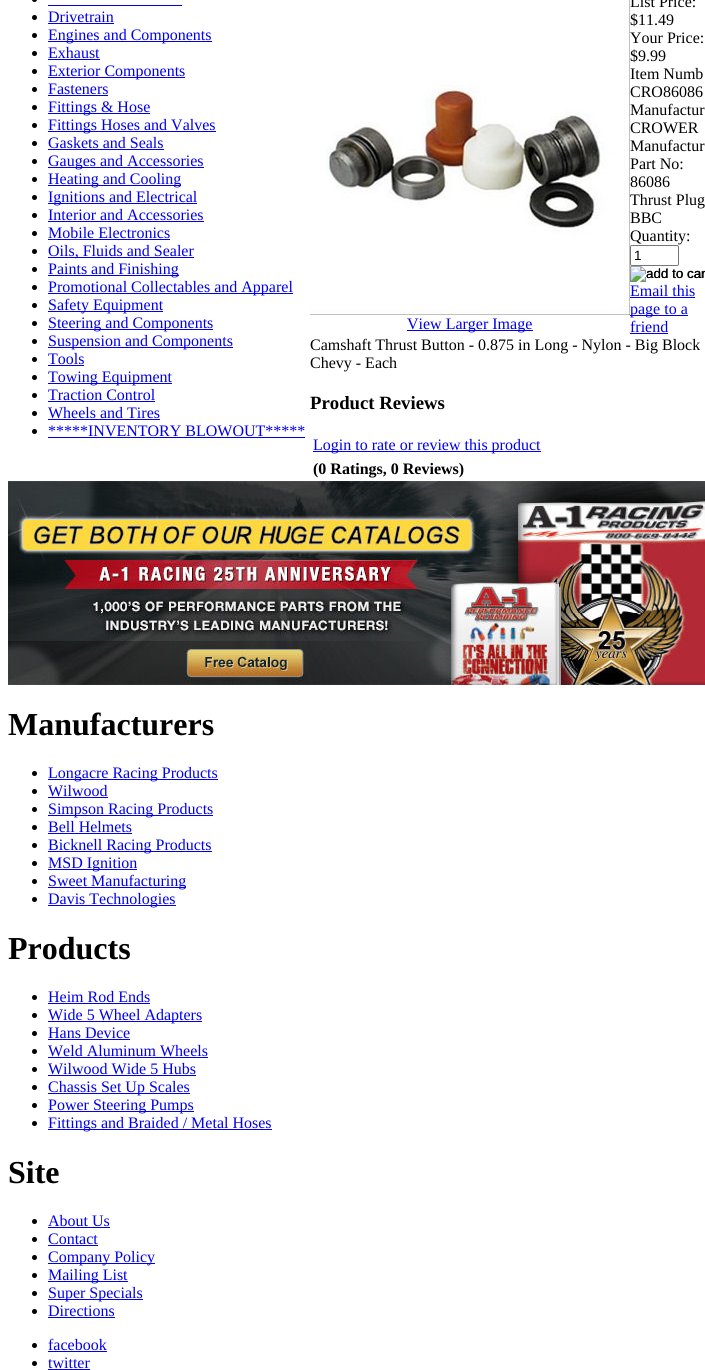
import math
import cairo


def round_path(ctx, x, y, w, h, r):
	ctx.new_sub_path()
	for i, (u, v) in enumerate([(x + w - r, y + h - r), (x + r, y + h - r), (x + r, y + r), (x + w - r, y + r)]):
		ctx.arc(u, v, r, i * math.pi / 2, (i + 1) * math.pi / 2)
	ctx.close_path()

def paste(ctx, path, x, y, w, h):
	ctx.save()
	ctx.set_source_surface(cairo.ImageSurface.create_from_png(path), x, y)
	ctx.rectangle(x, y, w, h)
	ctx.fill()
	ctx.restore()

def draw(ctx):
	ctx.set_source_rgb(1, 1, 1)
	ctx.paint()
	ctx.set_source_rgb(0, 0, 0)
	ctx.arc(34.5, -0.5, 2.5, 0, 2 * math.pi)
	ctx.fill()
	ctx.set_source_rgb(0, 0, 0.933)
	ctx.rectangle(48, 5, 134, 1)
	ctx.fill()
	ctx.set_source_rgb(0, 0, 0)
	ctx.arc(34.5, 17.5, 2.5, 0, 2 * math.pi)
	ctx.fill()
	ctx.select_font_face('Liberation Serif')
	ctx.set_font_size(16)
	ctx.set_source_rgb(0, 0, 0.933)
	ctx.move_to(48, 22)
	ctx.show_text('Drivetrain')
	ctx.rectangle(48, 23, 66, 1)
	ctx.fill()
	ctx.set_source_rgb(0, 0, 0)
	ctx.arc(34.5, 35.5, 2.5, 0, 2 * math.pi)
	ctx.fill()
	ctx.set_source_rgb(0, 0, 0.933)
	ctx.rectangle(48, 41, 164, 1)
	ctx.fill()
	ctx.move_to(48, 40)
	ctx.show_text('Engines and Components')
	ctx.set_source_rgb(0, 0, 0)
	ctx.new_path()
	ctx.arc(34.5, 53.5, 2.5, 0, 2 * math.pi)
	ctx.fill()
	ctx.set_source_rgb(0, 0, 0.933)
	ctx.move_to(48, 58)
	ctx.show_text('Exhaust')
	ctx.rectangle(48, 59, 52, 1)
	ctx.fill()
	ctx.set_source_rgb(0, 0, 0)
	ctx.arc(34.5, 71.5, 2.5, 0, 2 * math.pi)
	ctx.fill()
	ctx.set_source_rgb(0, 0, 0.933)
	ctx.rectangle(48, 77, 137, 1)
	ctx.fill()
	ctx.move_to(48, 76)
	ctx.show_text('Exterior Components')
	ctx.set_source_rgb(0, 0, 0)
	ctx.new_path()
	ctx.arc(34.5, 89.5, 2.5, 0, 2 * math.pi)
	ctx.fill()
	ctx.set_source_rgb(0, 0, 0.933)
	ctx.move_to(48, 94)
	ctx.show_text('Fasteners')
	ctx.rectangle(48, 95, 60, 1)
	ctx.fill()
	ctx.set_source_rgb(0, 0, 0)
	ctx.arc(34.5, 107.5, 2.5, 0, 2 * math.pi)
	ctx.fill()
	ctx.set_source_rgb(0, 0, 0.933)
	ctx.rectangle(48, 113, 102, 1)
	ctx.fill()
	ctx.move_to(48, 112)
	ctx.show_text('Fittings & Hose')
	ctx.set_source_rgb(0, 0, 0)
	ctx.new_path()
	ctx.arc(34.5, 125.5, 2.5, 0, 2 * math.pi)
	ctx.fill()
	ctx.set_source_rgb(0, 0, 0.933)
	ctx.rectangle(48, 131, 168, 1)
	ctx.fill()
	ctx.move_to(48, 130)
	ctx.show_text('Fittings Hoses and Valves')
	ctx.set_source_rgb(0, 0, 0)
	ctx.new_path()
	ctx.arc(34.5, 143.5, 2.5, 0, 2 * math.pi)
	ctx.fill()
	ctx.set_source_rgb(0, 0, 0.933)
	ctx.move_to(48, 148)
	ctx.show_text('Gaskets and Seals')
	ctx.rectangle(48, 149, 116, 1)
	ctx.fill()
	ctx.set_source_rgb(0, 0, 0)
	ctx.arc(34.5, 161.5, 2.5, 0, 2 * math.pi)
	ctx.fill()
	ctx.set_source_rgb(0, 0, 0.933)
	ctx.rectangle(48, 167, 156, 1)
	ctx.fill()
	ctx.move_to(48, 166)
	ctx.show_text('Gauges and Accessories')
	ctx.set_source_rgb(0, 0, 0)
	ctx.new_path()
	ctx.arc(34.5, 179.5, 2.5, 0, 2 * math.pi)
	ctx.fill()
	ctx.set_source_rgb(0, 0, 0.933)
	ctx.rectangle(48, 185, 133, 1)
	ctx.fill()
	ctx.move_to(48, 184)
	ctx.show_text('Heating and Cooling')
	ctx.set_source_rgb(0, 0, 0)
	ctx.new_path()
	ctx.arc(34.5, 197.5, 2.5, 0, 2 * math.pi)
	ctx.fill()
	ctx.set_source_rgb(0, 0, 0.933)
	ctx.rectangle(48, 203, 149, 1)
	ctx.fill()
	ctx.move_to(48, 202)
	ctx.show_text('Ignitions and Electrical')
	ctx.set_source_rgb(0, 0, 0)
	ctx.new_path()
	ctx.arc(34.5, 215.5, 2.5, 0, 2 * math.pi)
	ctx.fill()
	ctx.set_source_rgb(0, 0, 0.933)
	ctx.move_to(48, 220)
	ctx.show_text('Interior and Accessories')
	ctx.rectangle(48, 221, 156, 1)
	ctx.fill()
	ctx.set_source_rgb(0, 0, 0)
	ctx.arc(34.5, 233.5, 2.5, 0, 2 * math.pi)
	ctx.fill()
	ctx.set_source_rgb(0, 0, 0.933)
	ctx.move_to(48, 238)
	ctx.show_text('Mobile Electronics')
	ctx.rectangle(48, 239, 122, 1)
	ctx.fill()
	ctx.set_source_rgb(0, 0, 0)
	ctx.arc(34.5, 251.5, 2.5, 0, 2 * math.pi)
	ctx.fill()
	ctx.set_source_rgb(0, 0, 0.933)
	ctx.rectangle(48, 257, 146, 1)
	ctx.fill()
	ctx.move_to(48, 256)
	ctx.show_text('Oils, Fluids and Sealer')
	ctx.set_source_rgb(0, 0, 0)
	ctx.new_path()
	ctx.arc(34.5, 269.5, 2.5, 0, 2 * math.pi)
	ctx.fill()
	ctx.set_source_rgb(0, 0, 0.933)
	ctx.rectangle(48, 275, 131, 1)
	ctx.fill()
	ctx.move_to(48, 274)
	ctx.show_text('Paints and Finishing')
	ctx.set_source_rgb(0, 0, 0)
	ctx.new_path()
	ctx.arc(34.5, 287.5, 2.5, 0, 2 * math.pi)
	ctx.fill()
	ctx.set_source_rgb(0, 0, 0.933)
	ctx.rectangle(48, 293, 245, 1)
	ctx.fill()
	ctx.move_to(48, 292)
	ctx.show_text('Promotional Collectables and Apparel')
	ctx.set_source_rgb(0, 0, 0)
	ctx.new_path()
	ctx.arc(34.5, 305.5, 2.5, 0, 2 * math.pi)
	ctx.fill()
	ctx.set_source_rgb(0, 0, 0.933)
	ctx.rectangle(48, 311, 115, 1)
	ctx.fill()
	ctx.move_to(48, 310)
	ctx.show_text('Safety Equipment')
	ctx.set_source_rgb(0, 0, 0)
	ctx.new_path()
	ctx.arc(34.5, 323.5, 2.5, 0, 2 * math.pi)
	ctx.fill()
	ctx.set_source_rgb(0, 0, 0.933)
	ctx.rectangle(48, 329, 165, 1)
	ctx.fill()
	ctx.move_to(48, 328)
	ctx.show_text('Steering and Components')
	ctx.set_source_rgb(0, 0, 0)
	ctx.new_path()
	ctx.arc(34.5, 341.5, 2.5, 0, 2 * math.pi)
	ctx.fill()
	ctx.set_source_rgb(0, 0, 0.933)
	ctx.rectangle(48, 347, 185, 1)
	ctx.fill()
	ctx.move_to(48, 346)
	ctx.show_text('Suspension and Components')
	ctx.set_source_rgb(0, 0, 0)
	ctx.new_path()
	ctx.arc(34.5, 359.5, 2.5, 0, 2 * math.pi)
	ctx.fill()
	ctx.set_source_rgb(0, 0, 0.933)
	ctx.move_to(48, 364)
	ctx.show_text('Tools')
	ctx.rectangle(48, 365, 36, 1)
	ctx.fill()
	ctx.set_source_rgb(0, 0, 0)
	ctx.arc(34.5, 377.5, 2.5, 0, 2 * math.pi)
	ctx.fill()
	ctx.set_source_rgb(0, 0, 0.933)
	ctx.rectangle(48, 383, 124, 1)
	ctx.fill()
	ctx.move_to(48, 382)
	ctx.show_text('Towing Equipment')
	ctx.set_source_rgb(0, 0, 0)
	ctx.new_path()
	ctx.arc(34.5, 395.5, 2.5, 0, 2 * math.pi)
	ctx.fill()
	ctx.set_source_rgb(0, 0, 0.933)
	ctx.move_to(48, 400)
	ctx.show_text('Traction Control')
	ctx.rectangle(48, 401, 107, 1)
	ctx.fill()
	ctx.set_source_rgb(0, 0, 0)
	ctx.arc(34.5, 413.5, 2.5, 0, 2 * math.pi)
	ctx.fill()
	ctx.set_source_rgb(0, 0, 0.933)
	ctx.move_to(48, 418)
	ctx.show_text('Wheels and Tires')
	ctx.rectangle(48, 419, 112, 1)
	ctx.fill()
	ctx.set_source_rgb(0, 0, 0)
	ctx.arc(34.5, 431.5, 2.5, 0, 2 * math.pi)
	ctx.fill()
	ctx.set_source_rgb(0, 0, 0.933)
	ctx.move_to(48, 436)
	ctx.show_text('*****INVENTORY BLOWOUT*****')
	ctx.rectangle(48, 437, 257, 1)
	ctx.fill()
	paste(ctx, 'media/1.png', 310, 0, 320, 315)
	ctx.rectangle(407, 330, 126, 1)
	ctx.fill()
	ctx.move_to(407, 329)
	ctx.show_text('View Larger Image')
	ctx.set_source_rgb(0, 0, 0)
	for x, y, s in [
		(630, 7, 'List Price:'),
		(630, 25, '$11.49'),
		(630, 43, 'Your Price:'),
		(630, 61, '$9.99'),
		(630, 79, 'Item Numb'),
		(630, 97, 'CRO86086'),
		(630, 115, 'Manufactur'),
		(630, 133, 'CROWER'),
		(630, 151, 'Manufactur'),
		(630, 169, 'Part No:'),
		(630, 187, '86086'),
		(630, 205, 'Thrust Plug'),
		(630, 223, 'BBC'),
		(630, 241, 'Quantity:'),
	]:
		ctx.move_to(x, y)
		ctx.show_text(s)
	round_path(ctx, 630.5, 245.5, 48, 20, 1.5)
	ctx.set_source_rgb(0.463, 0.463, 0.463)
	ctx.set_line_width(1)
	ctx.stroke()
	ctx.select_font_face('Liberation Sans')
	ctx.set_font_size(13.5)
	ctx.set_source_rgb(0, 0, 0)
	ctx.move_to(634, 260)
	ctx.show_text('1')
	paste(ctx, 'media/2.png', 630, 266, 75, 16)
	ctx.move_to(646, 278)
	ctx.show_text('add to car')
	ctx.select_font_face('Liberation Serif')
	ctx.set_font_size(16)
	ctx.set_source_rgb(0, 0, 0.933)
	ctx.move_to(630, 296)
	ctx.show_text('Email this')
	ctx.rectangle(630, 297, 65, 1)
	ctx.fill()
	ctx.rectangle(630, 315, 58, 1)
	ctx.fill()
	ctx.move_to(630, 314)
	ctx.show_text('page to a')
	ctx.move_to(630, 332)
	ctx.show_text('friend')
	ctx.rectangle(630, 333, 38, 1)
	ctx.fill()
	ctx.set_source_rgb(0, 0, 0)
	ctx.move_to(310, 350)
	ctx.show_text('Camshaft Thrust Button - 0.875 in Long - Nylon - Big Block')
	ctx.move_to(310, 368)
	ctx.show_text('Chevy - Each')
	ctx.select_font_face('Liberation Serif', cairo.FONT_SLANT_NORMAL, cairo.FONT_WEIGHT_BOLD)
	ctx.set_font_size(18.75)
	ctx.move_to(310, 409)
	ctx.show_text('Product Reviews')
	ctx.set_source_rgb(0, 0, 0.933)
	ctx.rectangle(313, 451, 228, 1)
	ctx.fill()
	ctx.select_font_face('Liberation Serif')
	ctx.set_font_size(16)
	ctx.move_to(313, 450)
	ctx.show_text('Login to rate or review this product')
	ctx.select_font_face('Liberation Serif', cairo.FONT_SLANT_NORMAL, cairo.FONT_WEIGHT_BOLD)
	ctx.set_source_rgb(0, 0, 0)
	ctx.move_to(313, 474)
	ctx.show_text('(0 Ratings, 0 Reviews)')
	paste(ctx, 'media/3.png', 8, 481, 697, 204)
	ctx.set_font_size(32)
	ctx.move_to(8, 735)
	ctx.show_text('Manufacturers')
	ctx.new_path()
	ctx.arc(34.5, 773.5, 2.5, 0, 2 * math.pi)
	ctx.fill()
	ctx.set_source_rgb(0, 0, 0.933)
	ctx.rectangle(48, 779, 170, 1)
	ctx.fill()
	ctx.select_font_face('Liberation Serif')
	ctx.set_font_size(16)
	ctx.move_to(48, 778)
	ctx.show_text('Longacre Racing Products')
	ctx.set_source_rgb(0, 0, 0)
	ctx.new_path()
	ctx.arc(34.5, 791.5, 2.5, 0, 2 * math.pi)
	ctx.fill()
	ctx.set_source_rgb(0, 0, 0.933)
	ctx.move_to(48, 796)
	ctx.show_text('Wilwood')
	ctx.rectangle(48, 797, 60, 1)
	ctx.fill()
	ctx.set_source_rgb(0, 0, 0)
	ctx.arc(34.5, 809.5, 2.5, 0, 2 * math.pi)
	ctx.fill()
	ctx.set_source_rgb(0, 0, 0.933)
	ctx.rectangle(48, 815, 165, 1)
	ctx.fill()
	ctx.move_to(48, 814)
	ctx.show_text('Simpson Racing Products')
	ctx.set_source_rgb(0, 0, 0)
	ctx.new_path()
	ctx.arc(34.5, 827.5, 2.5, 0, 2 * math.pi)
	ctx.fill()
	ctx.set_source_rgb(0, 0, 0.933)
	ctx.move_to(48, 832)
	ctx.show_text('Bell Helmets')
	ctx.rectangle(48, 833, 84, 1)
	ctx.fill()
	ctx.set_source_rgb(0, 0, 0)
	ctx.arc(34.5, 845.5, 2.5, 0, 2 * math.pi)
	ctx.fill()
	ctx.set_source_rgb(0, 0, 0.933)
	ctx.rectangle(48, 851, 164, 1)
	ctx.fill()
	ctx.move_to(48, 850)
	ctx.show_text('Bicknell Racing Products')
	ctx.set_source_rgb(0, 0, 0)
	ctx.new_path()
	ctx.arc(34.5, 863.5, 2.5, 0, 2 * math.pi)
	ctx.fill()
	ctx.set_source_rgb(0, 0, 0.933)
	ctx.rectangle(48, 869, 89, 1)
	ctx.fill()
	ctx.move_to(48, 868)
	ctx.show_text('MSD Ignition')
	ctx.set_source_rgb(0, 0, 0)
	ctx.new_path()
	ctx.arc(34.5, 881.5, 2.5, 0, 2 * math.pi)
	ctx.fill()
	ctx.set_source_rgb(0, 0, 0.933)
	ctx.rectangle(48, 887, 138, 1)
	ctx.fill()
	ctx.move_to(48, 886)
	ctx.show_text('Sweet Manufacturing')
	ctx.set_source_rgb(0, 0, 0)
	ctx.new_path()
	ctx.arc(34.5, 899.5, 2.5, 0, 2 * math.pi)
	ctx.fill()
	ctx.set_source_rgb(0, 0, 0.933)
	ctx.rectangle(48, 905, 128, 1)
	ctx.fill()
	ctx.move_to(48, 904)
	ctx.show_text('Davis Technologies')
	ctx.select_font_face('Liberation Serif', cairo.FONT_SLANT_NORMAL, cairo.FONT_WEIGHT_BOLD)
	ctx.set_font_size(32)
	ctx.set_source_rgb(0, 0, 0)
	ctx.move_to(8, 959)
	ctx.show_text('Products')
	ctx.new_path()
	ctx.arc(34.5, 997.5, 2.5, 0, 2 * math.pi)
	ctx.fill()
	ctx.select_font_face('Liberation Serif')
	ctx.set_font_size(16)
	ctx.set_source_rgb(0, 0, 0.933)
	ctx.move_to(48, 1002)
	ctx.show_text('Heim Rod Ends')
	ctx.rectangle(48, 1003, 102, 1)
	ctx.fill()
	ctx.set_source_rgb(0, 0, 0)
	ctx.arc(34.5, 1015.5, 2.5, 0, 2 * math.pi)
	ctx.fill()
	ctx.set_source_rgb(0, 0, 0.933)
	ctx.rectangle(48, 1021, 154, 1)
	ctx.fill()
	ctx.move_to(48, 1020)
	ctx.show_text('Wide 5 Wheel Adapters')
	ctx.set_source_rgb(0, 0, 0)
	ctx.new_path()
	ctx.arc(34.5, 1033.5, 2.5, 0, 2 * math.pi)
	ctx.fill()
	ctx.set_source_rgb(0, 0, 0.933)
	ctx.move_to(48, 1038)
	ctx.show_text('Hans Device')
	ctx.rectangle(48, 1039, 82, 1)
	ctx.fill()
	ctx.set_source_rgb(0, 0, 0)
	ctx.arc(34.5, 1051.5, 2.5, 0, 2 * math.pi)
	ctx.fill()
	ctx.set_source_rgb(0, 0, 0.933)
	ctx.move_to(48, 1056)
	ctx.show_text('Weld Aluminum Wheels')
	ctx.rectangle(48, 1057, 160, 1)
	ctx.fill()
	ctx.set_source_rgb(0, 0, 0)
	ctx.arc(34.5, 1069.5, 2.5, 0, 2 * math.pi)
	ctx.fill()
	ctx.set_source_rgb(0, 0, 0.933)
	ctx.move_to(48, 1074)
	ctx.show_text('Wilwood Wide 5 Hubs')
	ctx.rectangle(48, 1075, 148, 1)
	ctx.fill()
	ctx.set_source_rgb(0, 0, 0)
	ctx.arc(34.5, 1087.5, 2.5, 0, 2 * math.pi)
	ctx.fill()
	ctx.set_source_rgb(0, 0, 0.933)
	ctx.rectangle(48, 1093, 142, 1)
	ctx.fill()
	ctx.move_to(48, 1092)
	ctx.show_text('Chassis Set Up Scales')
	ctx.set_source_rgb(0, 0, 0)
	ctx.new_path()
	ctx.arc(34.5, 1105.5, 2.5, 0, 2 * math.pi)
	ctx.fill()
	ctx.set_source_rgb(0, 0, 0.933)
	ctx.rectangle(48, 1111, 146, 1)
	ctx.fill()
	ctx.move_to(48, 1110)
	ctx.show_text('Power Steering Pumps')
	ctx.set_source_rgb(0, 0, 0)
	ctx.new_path()
	ctx.arc(34.5, 1123.5, 2.5, 0, 2 * math.pi)
	ctx.fill()
	ctx.set_source_rgb(0, 0, 0.933)
	ctx.rectangle(48, 1129, 224, 1)
	ctx.fill()
	ctx.move_to(48, 1128)
	ctx.show_text('Fittings and Braided / Metal Hoses')
	ctx.select_font_face('Liberation Serif', cairo.FONT_SLANT_NORMAL, cairo.FONT_WEIGHT_BOLD)
	ctx.set_font_size(32)
	ctx.set_source_rgb(0, 0, 0)
	ctx.move_to(8, 1183)
	ctx.show_text('Site')
	ctx.new_path()
	ctx.arc(34.5, 1221.5, 2.5, 0, 2 * math.pi)
	ctx.fill()
	ctx.select_font_face('Liberation Serif')
	ctx.set_font_size(16)
	ctx.set_source_rgb(0, 0, 0.933)
	ctx.move_to(48, 1226)
	ctx.show_text('About Us')
	ctx.rectangle(48, 1227, 62, 1)
	ctx.fill()
	ctx.set_source_rgb(0, 0, 0)
	ctx.arc(34.5, 1239.5, 2.5, 0, 2 * math.pi)
	ctx.fill()
	ctx.set_source_rgb(0, 0, 0.933)
	ctx.move_to(48, 1244)
	ctx.show_text('Contact')
	ctx.rectangle(48, 1245, 50, 1)
	ctx.fill()
	ctx.set_source_rgb(0, 0, 0)
	ctx.arc(34.5, 1257.5, 2.5, 0, 2 * math.pi)
	ctx.fill()
	ctx.set_source_rgb(0, 0, 0.933)
	ctx.rectangle(48, 1263, 107, 1)
	ctx.fill()
	ctx.move_to(48, 1262)
	ctx.show_text('Company Policy')
	ctx.set_source_rgb(0, 0, 0)
	ctx.new_path()
	ctx.arc(34.5, 1275.5, 2.5, 0, 2 * math.pi)
	ctx.fill()
	ctx.set_source_rgb(0, 0, 0.933)
	ctx.rectangle(48, 1281, 80, 1)
	ctx.fill()
	ctx.move_to(48, 1280)
	ctx.show_text('Mailing List')
	ctx.set_source_rgb(0, 0, 0)
	ctx.new_path()
	ctx.arc(34.5, 1293.5, 2.5, 0, 2 * math.pi)
	ctx.fill()
	ctx.set_source_rgb(0, 0, 0.933)
	ctx.rectangle(48, 1299, 95, 1)
	ctx.fill()
	ctx.move_to(48, 1298)
	ctx.show_text('Super Specials')
	ctx.set_source_rgb(0, 0, 0)
	ctx.new_path()
	ctx.arc(34.5, 1311.5, 2.5, 0, 2 * math.pi)
	ctx.fill()
	ctx.set_source_rgb(0, 0, 0.933)
	ctx.move_to(48, 1316)
	ctx.show_text('Directions')
	ctx.rectangle(48, 1317, 67, 1)
	ctx.fill()
	ctx.set_source_rgb(0, 0, 0)
	ctx.arc(34.5, 1345.5, 2.5, 0, 2 * math.pi)
	ctx.fill()
	ctx.set_source_rgb(0, 0, 0.933)
	ctx.move_to(48, 1350)
	ctx.show_text('facebook')
	ctx.rectangle(48, 1351, 59, 1)
	ctx.fill()
	ctx.set_source_rgb(0, 0, 0)
	ctx.arc(34.5, 1363.5, 2.5, 0, 2 * math.pi)
	ctx.fill()
	ctx.set_source_rgb(0, 0, 0.933)
	ctx.move_to(48, 1368)
	ctx.show_text('twitter')
	ctx.rectangle(48, 1369, 42, 1)
	ctx.fill()


surface = cairo.ImageSurface(cairo.FORMAT_RGB24, 705, 1370)
ctx = cairo.Context(surface)
options = cairo.FontOptions()
options.set_hint_metrics(cairo.HINT_METRICS_OFF)
options.set_hint_style(cairo.HINT_STYLE_NONE)
ctx.set_font_options(options)
ctx.set_miter_limit(4)
draw(ctx)
surface.write_to_png('image.png')
